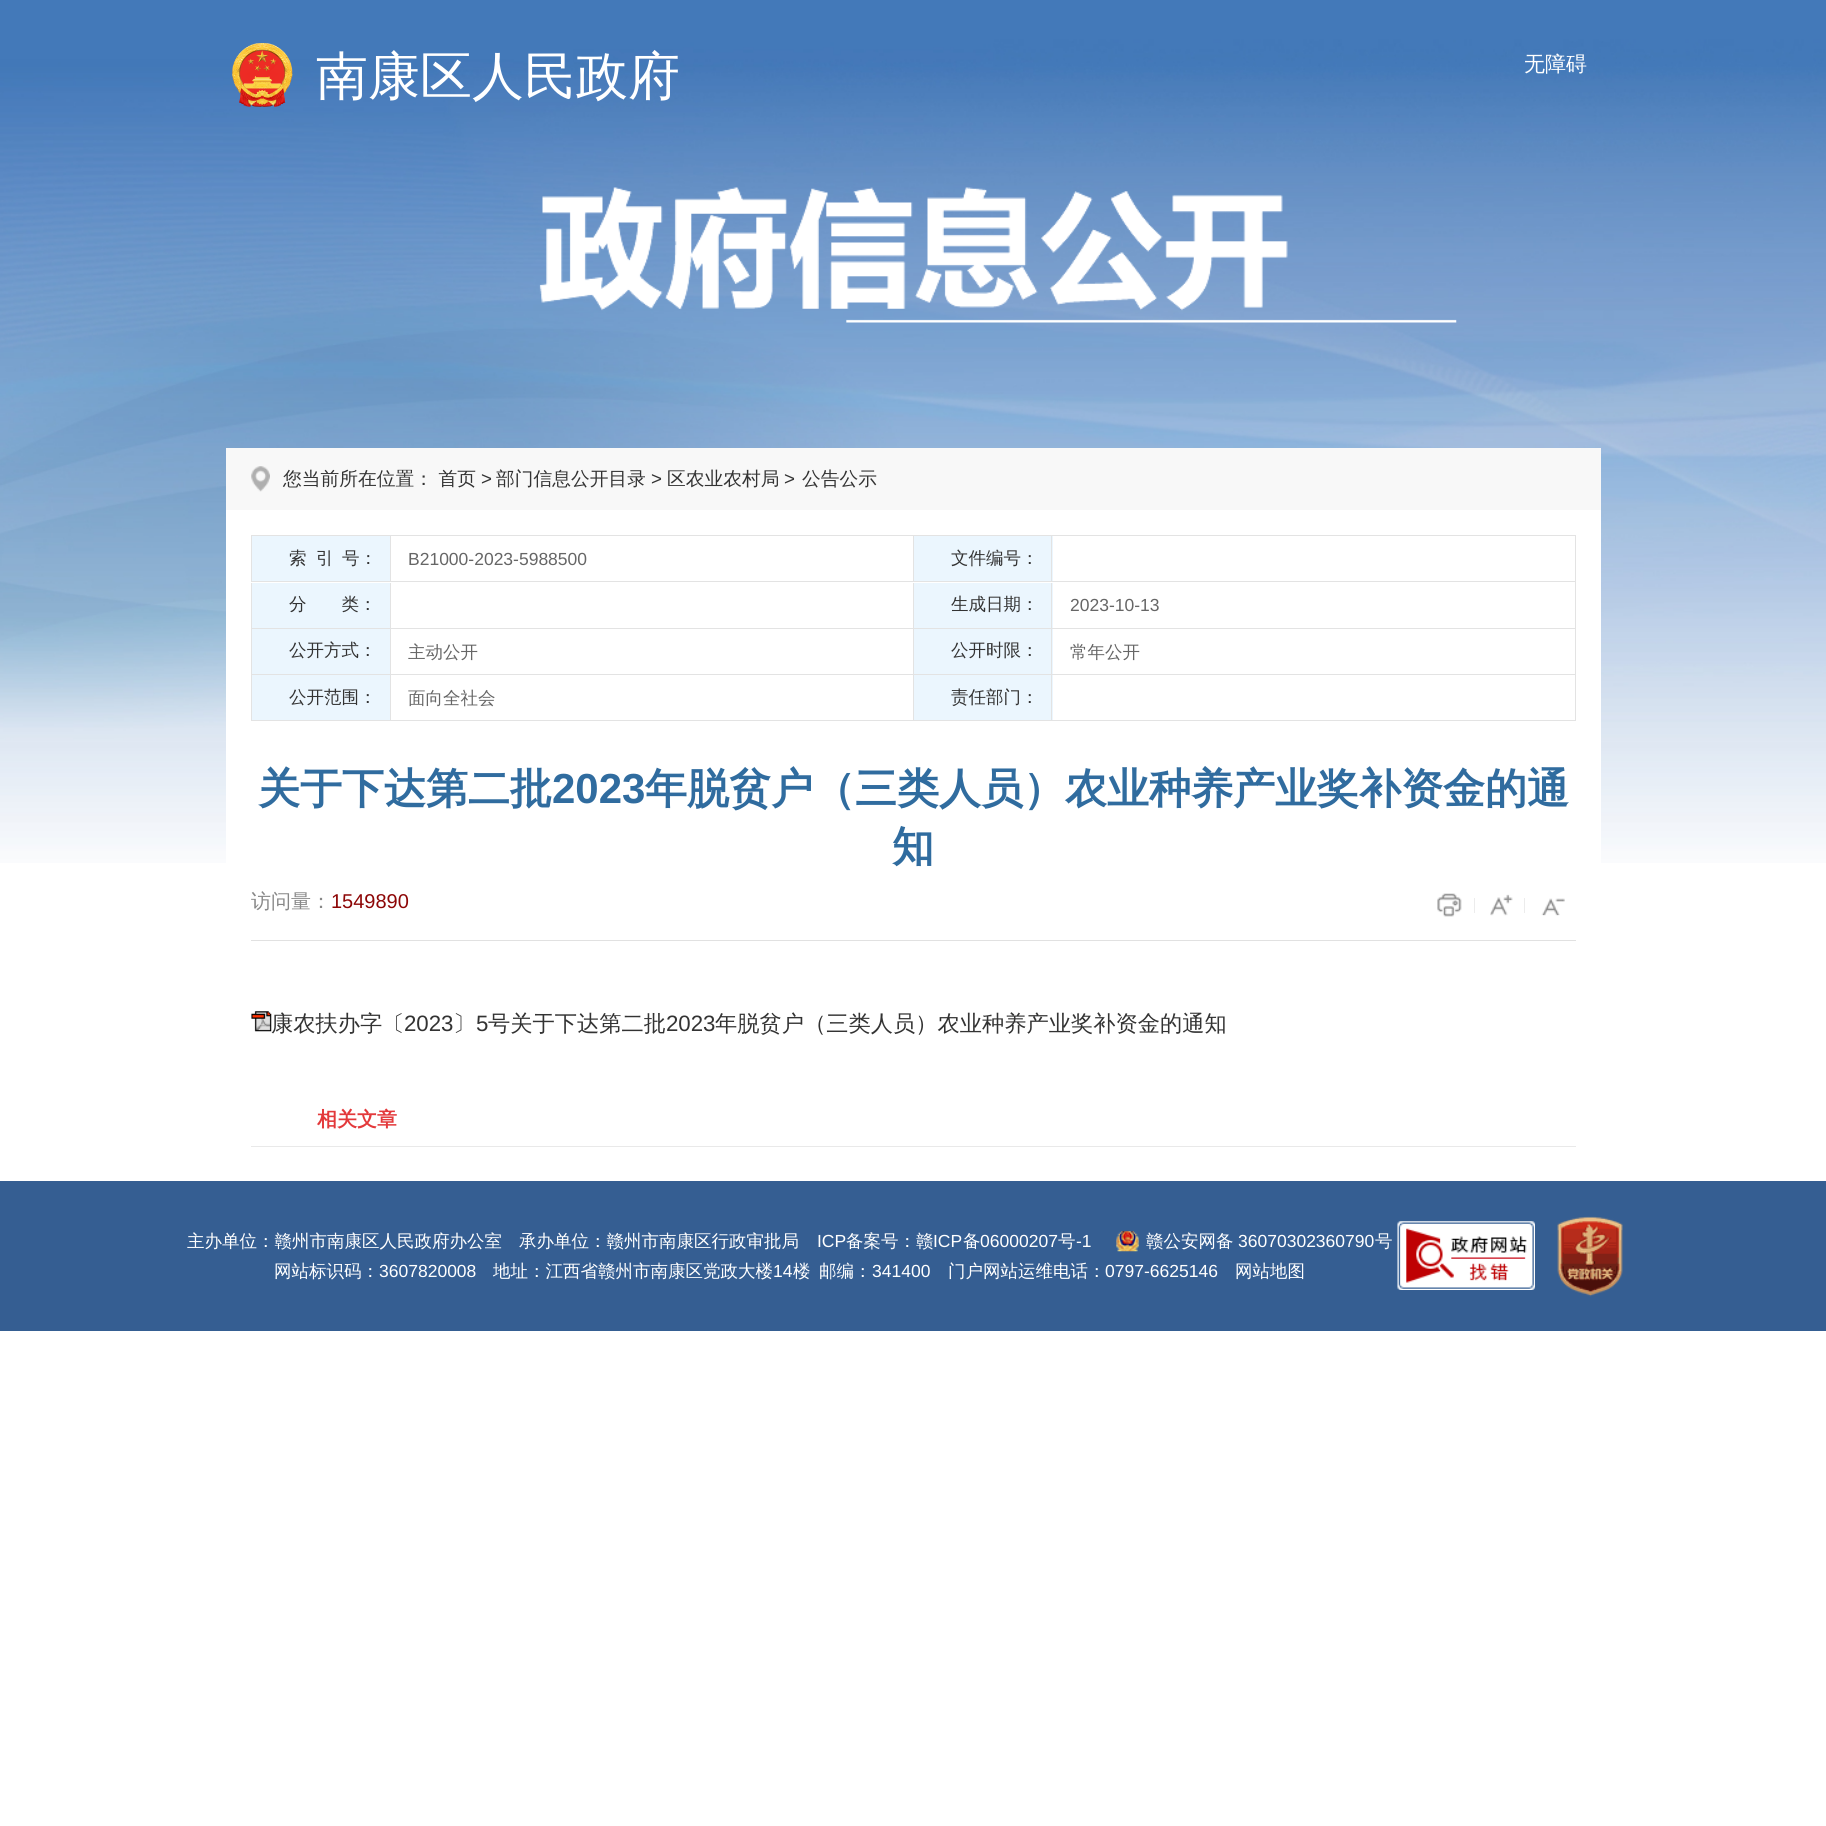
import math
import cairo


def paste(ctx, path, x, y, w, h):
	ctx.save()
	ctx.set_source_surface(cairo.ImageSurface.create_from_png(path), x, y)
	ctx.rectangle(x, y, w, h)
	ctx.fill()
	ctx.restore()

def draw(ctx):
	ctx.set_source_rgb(1, 1, 1)
	ctx.paint()
	paste(ctx, 'media/1.png', 0, 0, 1826, 863)
	paste(ctx, 'media/2.png', 232, 43, 61, 64)
	ctx.select_font_face('WenQuanYi Zen Hei Medium')
	ctx.set_font_size(52)
	ctx.set_source_rgb(1, 1, 1)
	ctx.move_to(316, 94)
	ctx.show_text('南康区人民政府')
	ctx.set_font_size(21)
	ctx.move_to(1524, 71)
	ctx.show_text('无障碍')
	paste(ctx, 'media/3.png', 539, 187, 918, 136)
	ctx.set_source_rgb(0.969, 0.969, 0.969)
	ctx.rectangle(226, 448, 1375, 62)
	ctx.fill()
	paste(ctx, 'media/4.png', 251, 466, 19, 26)
	ctx.set_font_size(18.75)
	ctx.set_source_rgb(0.2, 0.2, 0.2)
	ctx.move_to(283, 485)
	ctx.show_text('您当前所在位置： 首页')
	ctx.select_font_face('Liberation Sans')
	ctx.move_to(481, 485)
	ctx.show_text('>')
	ctx.select_font_face('WenQuanYi Zen Hei Medium')
	ctx.move_to(496, 485)
	ctx.show_text('部门信息公开目录')
	ctx.select_font_face('Liberation Sans')
	ctx.move_to(651, 485)
	ctx.show_text('>')
	ctx.select_font_face('WenQuanYi Zen Hei Medium')
	ctx.move_to(667, 485)
	ctx.show_text('区农业农村局')
	ctx.select_font_face('Liberation Sans')
	ctx.move_to(784, 485)
	ctx.show_text('>')
	ctx.select_font_face('WenQuanYi Zen Hei Medium')
	ctx.move_to(802, 485)
	ctx.show_text('公告公示')
	ctx.set_source_rgb(1, 1, 1)
	ctx.rectangle(226, 510, 1375, 353)
	ctx.fill()
	ctx.set_source_rgb(0.89, 0.89, 0.89)
	ctx.rectangle(251, 535, 1325, 1)
	ctx.rectangle(1575, 535, 1, 186)
	ctx.rectangle(251, 581, 1324, 1)
	ctx.fill()
	ctx.set_source_rgb(0.918, 0.961, 0.996)
	ctx.rectangle(252, 536, 138, 45)
	ctx.fill()
	ctx.set_source_rgb(0.89, 0.89, 0.89)
	ctx.rectangle(390, 536, 1, 45)
	ctx.rectangle(251, 536, 1, 45)
	ctx.fill()
	ctx.set_font_size(17.5)
	ctx.set_source_rgb(0.2, 0.2, 0.2)
	for x, y, s in [
		(289, 564, '索'),
		(316, 564, '引'),
		(342, 564, '号：'),
	]:
		ctx.move_to(x, y)
		ctx.show_text(s)
	ctx.select_font_face('Liberation Sans')
	ctx.set_source_rgb(0.4, 0.4, 0.4)
	ctx.move_to(408, 565)
	ctx.show_text('B21000-2023-5988500')
	ctx.set_source_rgb(0.918, 0.961, 0.996)
	ctx.rectangle(914, 536, 139, 45)
	ctx.fill()
	ctx.set_source_rgb(0.89, 0.89, 0.89)
	ctx.rectangle(1051, 536, 1, 45)
	ctx.rectangle(913, 536, 1, 45)
	ctx.fill()
	ctx.select_font_face('WenQuanYi Zen Hei Medium')
	ctx.set_source_rgb(0.2, 0.2, 0.2)
	ctx.move_to(951, 564)
	ctx.show_text('文件编号：')
	ctx.set_source_rgb(0.89, 0.89, 0.89)
	ctx.rectangle(251, 628, 1324, 1)
	ctx.fill()
	ctx.set_source_rgb(0.918, 0.961, 0.996)
	ctx.rectangle(252, 583, 138, 45)
	ctx.fill()
	ctx.set_source_rgb(0.89, 0.89, 0.89)
	ctx.rectangle(390, 583, 1, 45)
	ctx.rectangle(251, 583, 1, 45)
	ctx.fill()
	ctx.set_source_rgb(0.2, 0.2, 0.2)
	ctx.move_to(289, 610)
	ctx.show_text('分　　类：')
	ctx.set_source_rgb(0.918, 0.961, 0.996)
	ctx.rectangle(914, 583, 139, 45)
	ctx.fill()
	ctx.set_source_rgb(0.89, 0.89, 0.89)
	ctx.rectangle(1051, 583, 1, 45)
	ctx.rectangle(913, 583, 1, 45)
	ctx.fill()
	ctx.set_source_rgb(0.2, 0.2, 0.2)
	ctx.move_to(951, 610)
	ctx.show_text('生成日期：')
	ctx.select_font_face('Liberation Sans')
	ctx.set_source_rgb(0.4, 0.4, 0.4)
	ctx.move_to(1070, 611)
	ctx.show_text('2023-10-13')
	ctx.set_source_rgb(0.89, 0.89, 0.89)
	ctx.rectangle(251, 674, 1324, 1)
	ctx.fill()
	ctx.set_source_rgb(0.918, 0.961, 0.996)
	ctx.rectangle(252, 629, 138, 45)
	ctx.fill()
	ctx.set_source_rgb(0.89, 0.89, 0.89)
	ctx.rectangle(390, 629, 1, 45)
	ctx.rectangle(251, 629, 1, 45)
	ctx.fill()
	ctx.select_font_face('WenQuanYi Zen Hei Medium')
	ctx.set_source_rgb(0.2, 0.2, 0.2)
	ctx.move_to(289, 656)
	ctx.show_text('公开方式：')
	ctx.set_source_rgb(0.4, 0.4, 0.4)
	ctx.move_to(408, 658)
	ctx.show_text('主动公开')
	ctx.set_source_rgb(0.918, 0.961, 0.996)
	ctx.rectangle(914, 629, 139, 45)
	ctx.fill()
	ctx.set_source_rgb(0.89, 0.89, 0.89)
	ctx.rectangle(1051, 629, 1, 45)
	ctx.rectangle(913, 629, 1, 45)
	ctx.fill()
	ctx.set_source_rgb(0.2, 0.2, 0.2)
	ctx.move_to(951, 656)
	ctx.show_text('公开时限：')
	ctx.set_source_rgb(0.4, 0.4, 0.4)
	ctx.move_to(1070, 658)
	ctx.show_text('常年公开')
	ctx.set_source_rgb(0.89, 0.89, 0.89)
	ctx.rectangle(251, 720, 1324, 1)
	ctx.fill()
	ctx.set_source_rgb(0.918, 0.961, 0.996)
	ctx.rectangle(252, 675, 138, 45)
	ctx.fill()
	ctx.set_source_rgb(0.89, 0.89, 0.89)
	ctx.rectangle(390, 675, 1, 45)
	ctx.rectangle(251, 675, 1, 45)
	ctx.fill()
	ctx.set_source_rgb(0.2, 0.2, 0.2)
	ctx.move_to(289, 703)
	ctx.show_text('公开范围：')
	ctx.set_source_rgb(0.4, 0.4, 0.4)
	ctx.move_to(408, 704)
	ctx.show_text('面向全社会')
	ctx.set_source_rgb(0.918, 0.961, 0.996)
	ctx.rectangle(914, 675, 139, 45)
	ctx.fill()
	ctx.set_source_rgb(0.89, 0.89, 0.89)
	ctx.rectangle(1051, 675, 1, 45)
	ctx.rectangle(913, 675, 1, 45)
	ctx.fill()
	ctx.set_source_rgb(0.2, 0.2, 0.2)
	ctx.move_to(951, 703)
	ctx.show_text('责任部门：')
	ctx.select_font_face('WenQuanYi Zen Hei', cairo.FONT_SLANT_NORMAL, cairo.FONT_WEIGHT_BOLD)
	ctx.set_font_size(42)
	ctx.set_source_rgb(0.188, 0.424, 0.624)
	ctx.move_to(258, 803)
	ctx.show_text('关于下达第二批')
	ctx.select_font_face('Liberation Sans', cairo.FONT_SLANT_NORMAL, cairo.FONT_WEIGHT_BOLD)
	ctx.move_to(552, 803)
	ctx.show_text('2023')
	ctx.select_font_face('WenQuanYi Zen Hei', cairo.FONT_SLANT_NORMAL, cairo.FONT_WEIGHT_BOLD)
	ctx.move_to(645, 803)
	ctx.show_text('年脱贫户（三类人员）农业种养产业奖补资金的通')
	ctx.move_to(892, 861)
	ctx.show_text('知')
	ctx.set_source_rgb(0.882, 0.882, 0.882)
	ctx.rectangle(251, 940, 1325, 1)
	ctx.fill()
	ctx.select_font_face('WenQuanYi Zen Hei Medium')
	ctx.set_font_size(20)
	ctx.set_source_rgb(0.533, 0.533, 0.533)
	ctx.move_to(251, 908)
	ctx.show_text('访问量：')
	ctx.select_font_face('Liberation Sans')
	ctx.set_source_rgb(0.553, 0.027, 0.027)
	ctx.move_to(331, 908)
	ctx.show_text('1549890')
	paste(ctx, 'media/5.png', 1437, 893, 25, 24)
	ctx.set_source_rgb(0.925, 0.925, 0.925)
	ctx.rectangle(1474, 898, 1, 15)
	ctx.fill()
	paste(ctx, 'media/6.png', 1490, 894, 23, 22)
	ctx.rectangle(1524, 898, 1, 15)
	ctx.fill()
	paste(ctx, 'media/7.png', 1541, 898, 24, 18)
	paste(ctx, 'media/8.png', 251, 1011, 21, 21)
	ctx.select_font_face('WenQuanYi Zen Hei Medium')
	ctx.set_font_size(22.25)
	ctx.set_source_rgb(0.2, 0.2, 0.2)
	ctx.move_to(271, 1031)
	ctx.show_text('康农扶办字〔')
	ctx.select_font_face('Liberation Sans')
	ctx.move_to(404, 1031)
	ctx.show_text('2023')
	ctx.select_font_face('WenQuanYi Zen Hei Medium')
	ctx.move_to(453, 1031)
	ctx.show_text('〕')
	ctx.select_font_face('Liberation Sans')
	ctx.move_to(476, 1031)
	ctx.show_text('5')
	ctx.select_font_face('WenQuanYi Zen Hei Medium')
	ctx.move_to(488, 1031)
	ctx.show_text('号关于下达第二批')
	ctx.select_font_face('Liberation Sans')
	ctx.move_to(666, 1031)
	ctx.show_text('2023')
	ctx.select_font_face('WenQuanYi Zen Hei Medium')
	ctx.move_to(715, 1031)
	ctx.show_text('年脱贫户（三类人员）农业种养产业奖补资金的通知')
	ctx.set_source_rgb(0.914, 0.914, 0.914)
	ctx.rectangle(251, 1146, 1325, 1)
	ctx.fill()
	ctx.select_font_face('WenQuanYi Zen Hei', cairo.FONT_SLANT_NORMAL, cairo.FONT_WEIGHT_BOLD)
	ctx.set_font_size(20)
	ctx.set_source_rgb(0.89, 0.224, 0.231)
	ctx.move_to(317, 1126)
	ctx.show_text('相关文章')
	ctx.set_source_rgb(0.208, 0.369, 0.573)
	ctx.rectangle(0, 1181, 1826, 150)
	ctx.fill()
	ctx.select_font_face('WenQuanYi Zen Hei Medium')
	ctx.set_font_size(17.5)
	ctx.set_source_rgb(1, 1, 1)
	ctx.move_to(187, 1247)
	ctx.show_text('主办单位：赣州市南康区人民政府办公室')
	ctx.move_to(519, 1247)
	ctx.show_text('承办单位：赣州市南康区行政审批局')
	ctx.select_font_face('Liberation Sans')
	ctx.move_to(817, 1247)
	ctx.show_text('ICP')
	ctx.select_font_face('WenQuanYi Zen Hei Medium')
	ctx.move_to(846, 1247)
	ctx.show_text('备案号：赣')
	ctx.select_font_face('Liberation Sans')
	ctx.move_to(933, 1247)
	ctx.show_text('ICP')
	ctx.select_font_face('WenQuanYi Zen Hei Medium')
	ctx.move_to(963, 1247)
	ctx.show_text('备')
	ctx.select_font_face('Liberation Sans')
	ctx.move_to(980, 1247)
	ctx.show_text('06000207')
	ctx.select_font_face('WenQuanYi Zen Hei Medium')
	ctx.move_to(1058, 1247)
	ctx.show_text('号')
	ctx.select_font_face('Liberation Sans')
	ctx.move_to(1076, 1247)
	ctx.show_text('-1')
	paste(ctx, 'media/9.png', 1116, 1231, 23, 21)
	ctx.select_font_face('WenQuanYi Zen Hei Medium')
	ctx.move_to(1146, 1247)
	ctx.show_text('赣公安网备')
	ctx.select_font_face('Liberation Sans')
	ctx.move_to(1238, 1247)
	ctx.show_text('36070302360790')
	ctx.select_font_face('WenQuanYi Zen Hei Medium')
	ctx.move_to(1375, 1247)
	ctx.show_text('号')
	ctx.move_to(274, 1277)
	ctx.show_text('网站标识码：')
	ctx.select_font_face('Liberation Sans')
	ctx.move_to(379, 1277)
	ctx.show_text('3607820008')
	ctx.select_font_face('WenQuanYi Zen Hei Medium')
	ctx.move_to(493, 1277)
	ctx.show_text('地址：江西省赣州市南康区党政大楼')
	ctx.select_font_face('Liberation Sans')
	ctx.move_to(773, 1277)
	ctx.show_text('14')
	ctx.select_font_face('WenQuanYi Zen Hei Medium')
	ctx.move_to(793, 1277)
	ctx.show_text('楼')
	ctx.move_to(819, 1277)
	ctx.show_text('邮编：')
	ctx.select_font_face('Liberation Sans')
	ctx.move_to(872, 1277)
	ctx.show_text('341400')
	ctx.select_font_face('WenQuanYi Zen Hei Medium')
	ctx.move_to(948, 1277)
	ctx.show_text('门户网站运维电话：')
	ctx.select_font_face('Liberation Sans')
	ctx.move_to(1105, 1277)
	ctx.show_text('0797-6625146')
	ctx.select_font_face('WenQuanYi Zen Hei Medium')
	ctx.move_to(1235, 1277)
	ctx.show_text('网站地图')
	paste(ctx, 'media/10.png', 1397, 1221, 138, 69)
	paste(ctx, 'media/11.png', 1557, 1216, 66, 81)


surface = cairo.ImageSurface(cairo.FORMAT_RGB24, 1826, 1826)
ctx = cairo.Context(surface)
options = cairo.FontOptions()
options.set_hint_metrics(cairo.HINT_METRICS_OFF)
options.set_hint_style(cairo.HINT_STYLE_NONE)
ctx.set_font_options(options)
ctx.set_miter_limit(4)
draw(ctx)
surface.write_to_png('image.png')
